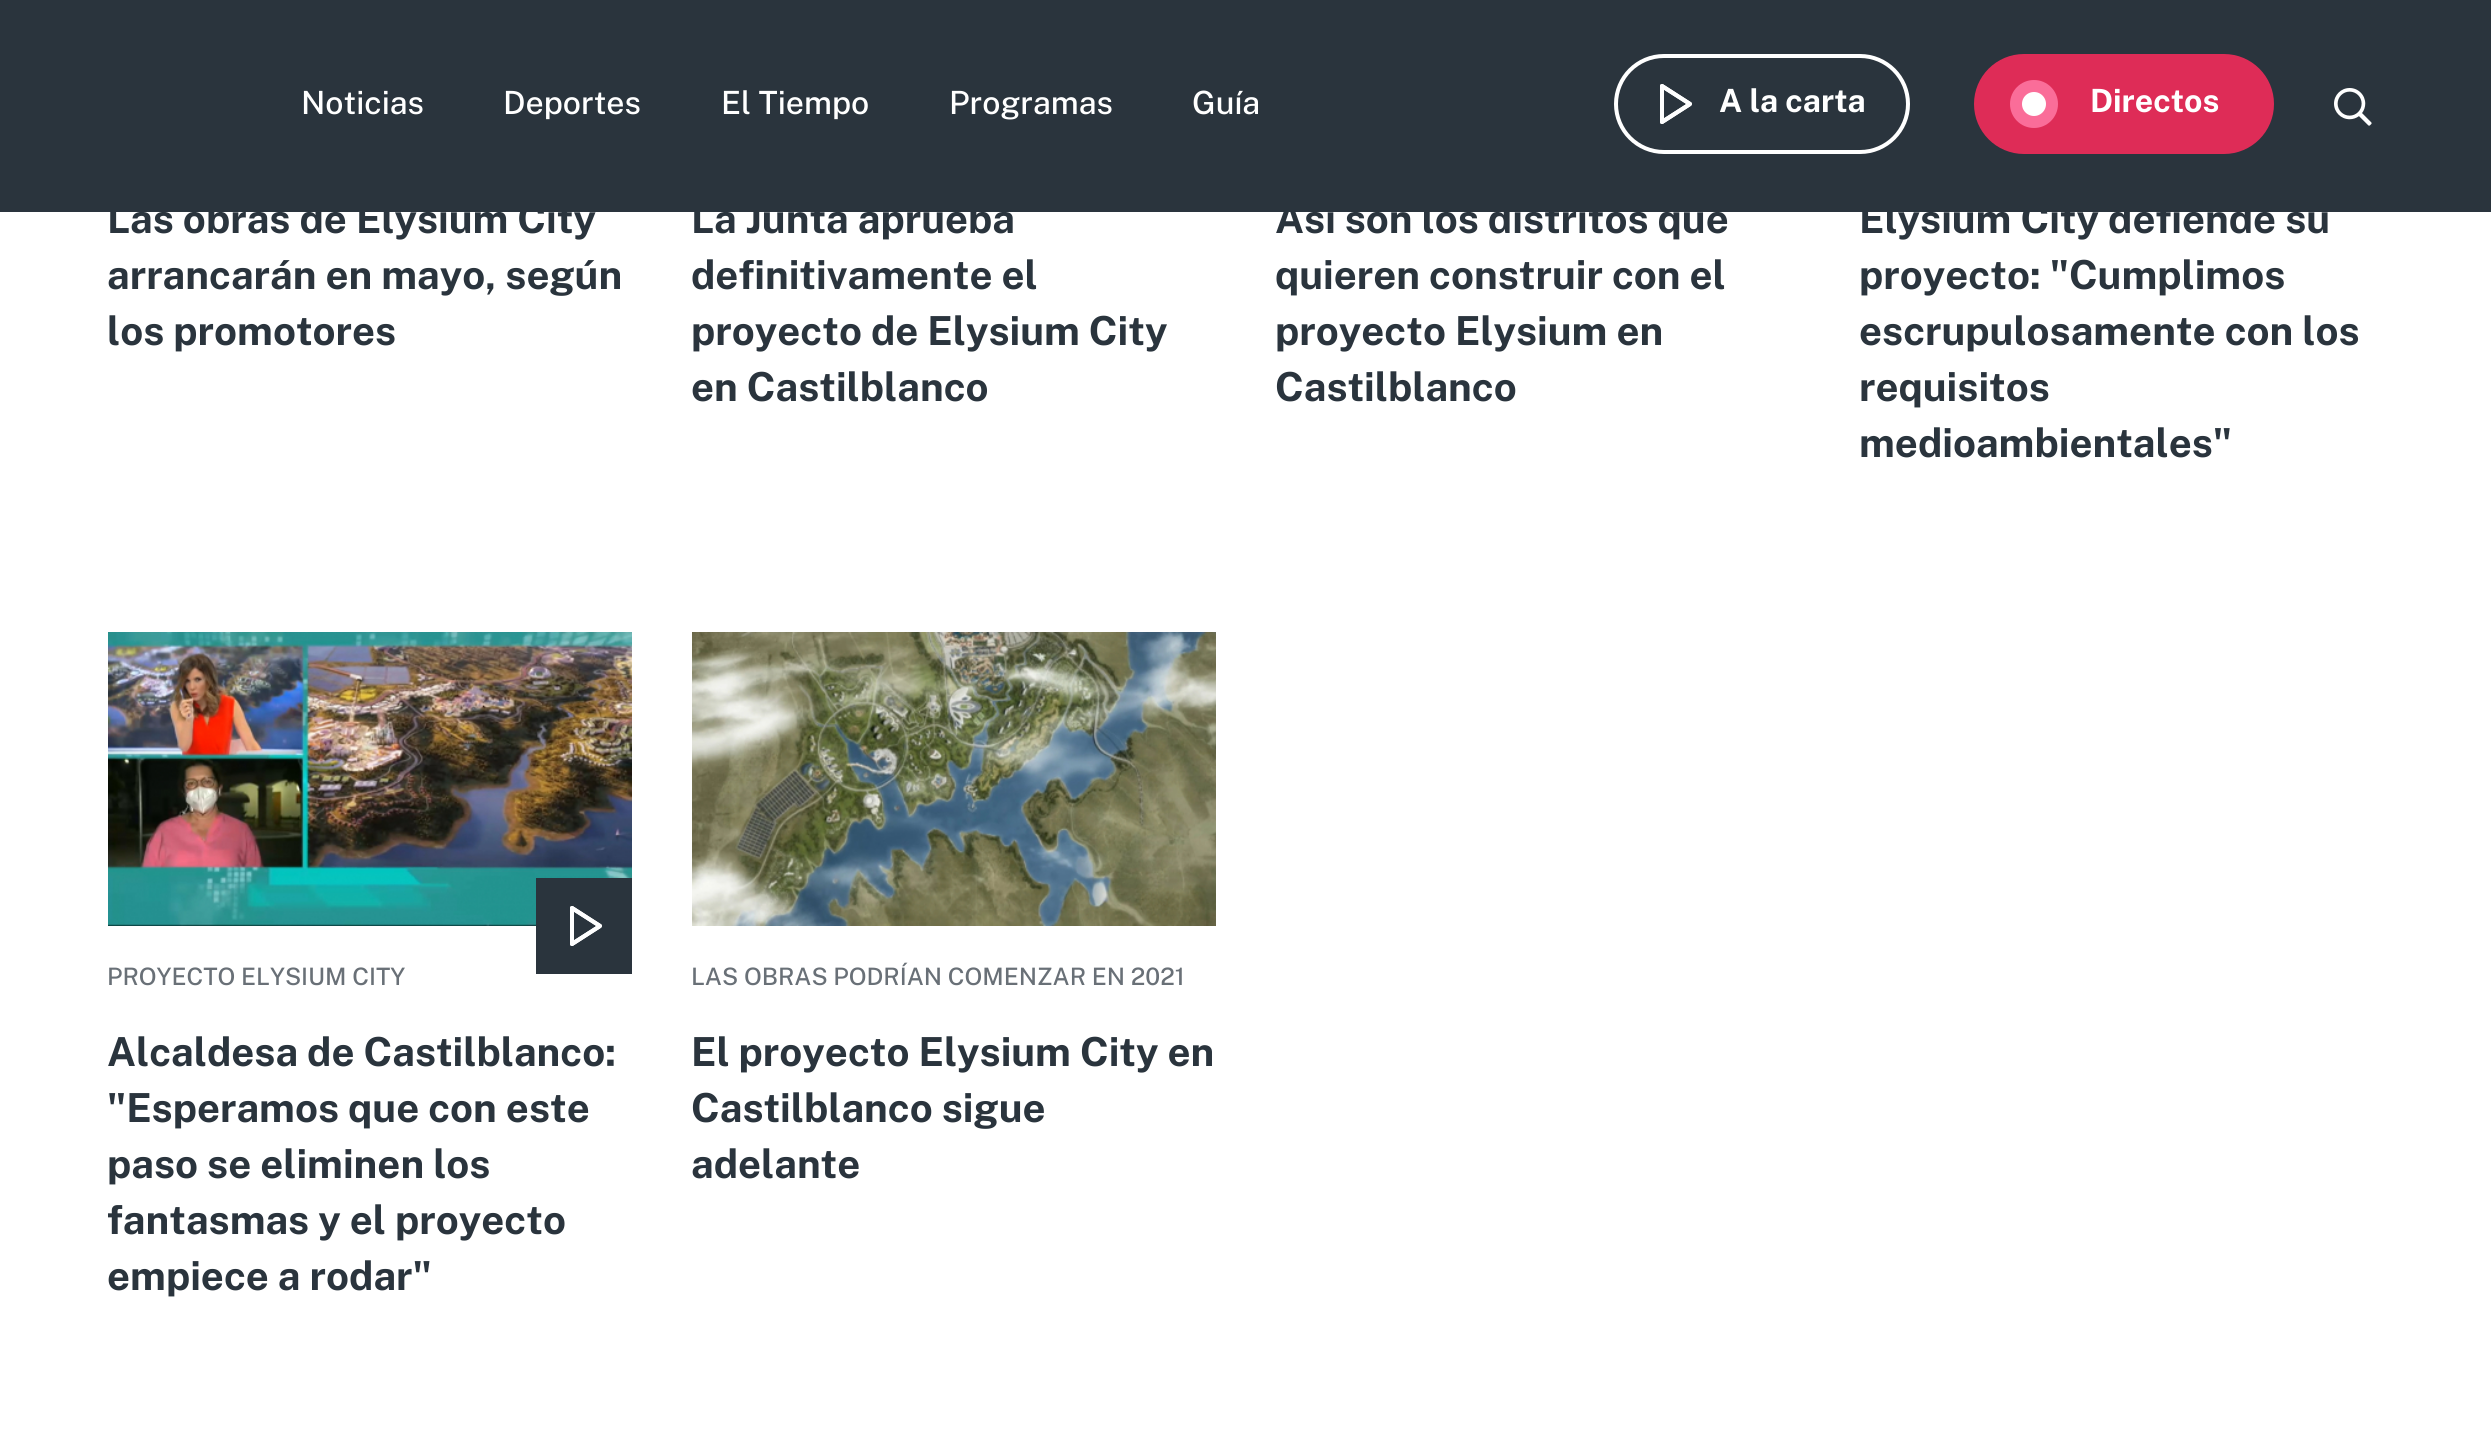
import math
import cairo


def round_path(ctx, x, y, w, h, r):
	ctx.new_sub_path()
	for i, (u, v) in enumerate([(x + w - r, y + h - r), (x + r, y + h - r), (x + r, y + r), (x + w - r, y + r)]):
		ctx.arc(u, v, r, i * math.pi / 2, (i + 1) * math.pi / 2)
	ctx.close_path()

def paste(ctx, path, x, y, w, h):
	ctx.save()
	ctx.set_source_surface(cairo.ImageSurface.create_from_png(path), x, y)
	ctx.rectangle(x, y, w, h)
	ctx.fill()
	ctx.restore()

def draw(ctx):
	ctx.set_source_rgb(1, 1, 1)
	ctx.paint()
	ctx.set_source_rgb(0.165, 0.204, 0.239)
	ctx.rectangle(0, 0, 2491, 212)
	ctx.fill()
	ctx.select_font_face('Public Sans Medium')
	ctx.set_font_size(32)
	ctx.set_source_rgb(1, 1, 1)
	for x, y, s in [
		(301, 114, 'Noticias'),
		(503, 114, 'Deportes'),
		(721, 114, 'El Tiempo'),
		(949, 114, 'Programas'),
		(1192, 114, 'Guía'),
	]:
		ctx.move_to(x, y)
		ctx.show_text(s)
	round_path(ctx, 1616, 56, 292, 96, 48)
	ctx.set_line_width(4)
	ctx.stroke()
	paste(ctx, 'media/1.png', 1660, 84, 32, 40)
	ctx.select_font_face('Public Sans', cairo.FONT_SLANT_NORMAL, cairo.FONT_WEIGHT_BOLD)
	ctx.move_to(1719, 112)
	ctx.show_text('A la carta')
	ctx.set_source_rgb(0.871, 0.173, 0.341)
	round_path(ctx, 1974, 54, 300, 100, 50)
	ctx.fill()
	ctx.set_source_rgb(1, 1, 1)
	ctx.arc(2034, 104, 18, 0, 2 * math.pi)
	ctx.fill_preserve()
	ctx.set_source_rgb(0.98, 0.427, 0.6)
	ctx.set_line_width(12)
	ctx.stroke()
	ctx.set_source_rgb(1, 1, 1)
	ctx.move_to(2090, 112)
	ctx.show_text('Directos')
	paste(ctx, 'media/2.png', 2334, 88, 38, 38)
	ctx.set_font_size(40)
	ctx.set_source_rgb(0.165, 0.204, 0.239)
	for x, y, s in [
		(107, 233, 'Las obras de Elysium City'),
		(107, 289, 'arrancarán en mayo, según'),
		(107, 345, 'los promotores'),
		(691, 233, 'La Junta aprueba'),
		(691, 289, 'definitivamente el'),
		(691, 345, 'proyecto de Elysium City'),
		(691, 401, 'en Castilblanco'),
		(1275, 233, 'Así son los distritos que'),
		(1275, 289, 'quieren construir con el'),
		(1275, 345, 'proyecto Elysium en'),
		(1275, 401, 'Castilblanco'),
		(1859, 233, 'Elysium City defiende su'),
		(1859, 289, 'proyecto: "Cumplimos'),
		(1859, 345, 'escrupulosamente con los'),
		(1859, 401, 'requisitos'),
		(1859, 457, 'medioambientales"'),
	]:
		ctx.move_to(x, y)
		ctx.show_text(s)
	paste(ctx, 'media/3.png', 108, 632, 524, 294)
	ctx.rectangle(536, 878, 96, 96)
	ctx.fill()
	paste(ctx, 'media/1.png', 570, 906, 32, 40)
	ctx.select_font_face('Public Sans Medium')
	ctx.set_font_size(24)
	ctx.set_source_rgb(0.412, 0.439, 0.467)
	ctx.move_to(107, 985)
	ctx.show_text('PROYECTO ELYSIUM CITY')
	ctx.select_font_face('Public Sans', cairo.FONT_SLANT_NORMAL, cairo.FONT_WEIGHT_BOLD)
	ctx.set_font_size(40)
	ctx.set_source_rgb(0.165, 0.204, 0.239)
	for x, y, s in [
		(107, 1066, 'Alcaldesa de Castilblanco:'),
		(107, 1122, '"Esperamos que con este'),
		(107, 1178, 'paso se eliminen los'),
		(107, 1234, 'fantasmas y el proyecto'),
		(107, 1290, 'empiece a rodar"'),
	]:
		ctx.move_to(x, y)
		ctx.show_text(s)
	paste(ctx, 'media/4.png', 692, 632, 524, 294)
	ctx.select_font_face('Public Sans Medium')
	ctx.set_font_size(24)
	ctx.set_source_rgb(0.412, 0.439, 0.467)
	ctx.move_to(691, 985)
	ctx.show_text('LAS OBRAS PODRÍAN COMENZAR EN 2021')
	ctx.select_font_face('Public Sans', cairo.FONT_SLANT_NORMAL, cairo.FONT_WEIGHT_BOLD)
	ctx.set_font_size(40)
	ctx.set_source_rgb(0.165, 0.204, 0.239)
	for x, y, s in [
		(691, 1066, 'El proyecto Elysium City en'),
		(691, 1122, 'Castilblanco sigue'),
		(691, 1178, 'adelante'),
	]:
		ctx.move_to(x, y)
		ctx.show_text(s)


surface = cairo.ImageSurface(cairo.FORMAT_RGB24, 2491, 1454)
ctx = cairo.Context(surface)
options = cairo.FontOptions()
options.set_hint_metrics(cairo.HINT_METRICS_OFF)
options.set_hint_style(cairo.HINT_STYLE_NONE)
ctx.set_font_options(options)
ctx.set_miter_limit(4)
draw(ctx)
surface.write_to_png('image.png')
